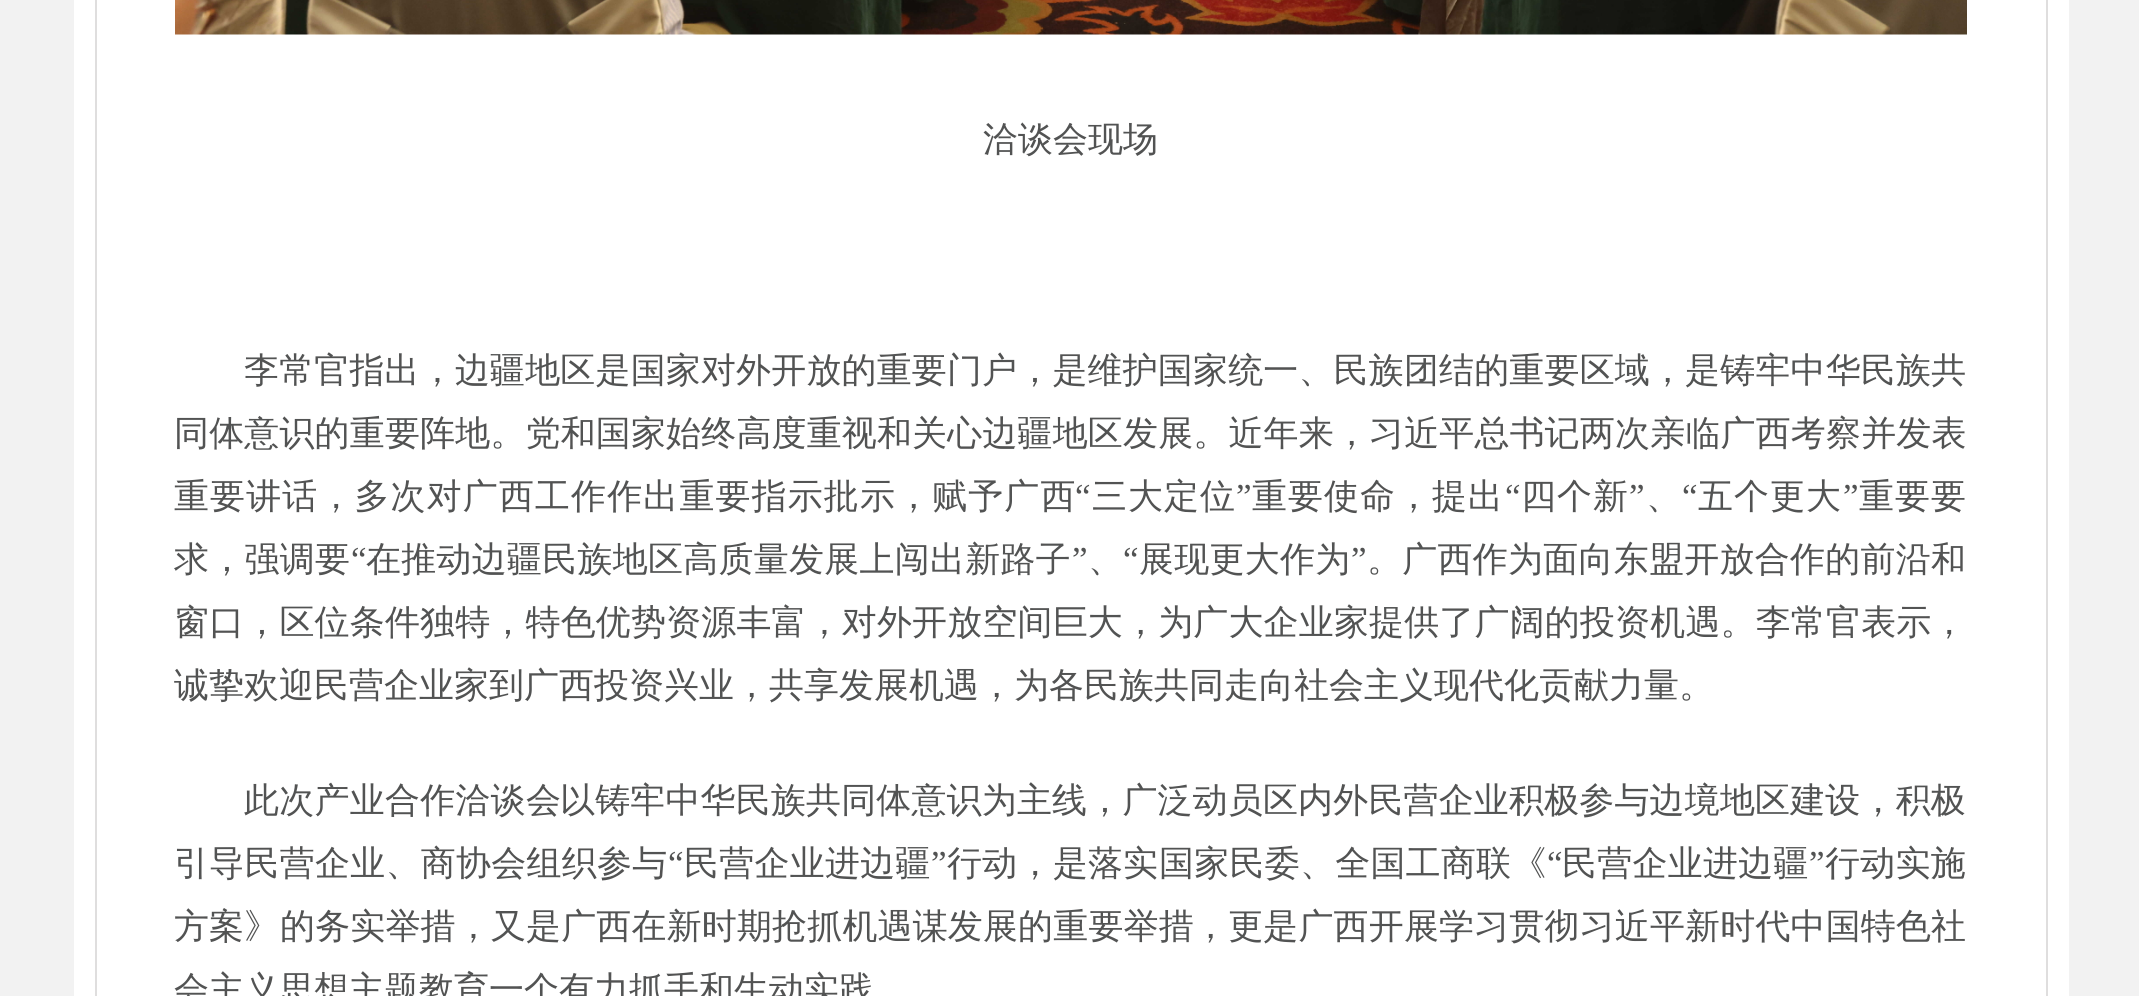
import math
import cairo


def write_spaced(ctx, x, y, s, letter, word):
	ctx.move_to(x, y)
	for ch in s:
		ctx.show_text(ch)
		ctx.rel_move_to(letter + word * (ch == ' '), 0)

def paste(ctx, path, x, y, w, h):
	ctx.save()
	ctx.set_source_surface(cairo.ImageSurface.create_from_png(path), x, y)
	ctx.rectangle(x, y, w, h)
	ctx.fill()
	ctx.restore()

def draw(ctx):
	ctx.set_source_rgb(0.949, 0.949, 0.949)
	ctx.paint()
	ctx.set_source_rgb(1, 1, 1)
	ctx.rectangle(74, 0, 1995, 996)
	ctx.fill()
	ctx.rectangle(96, -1, 1951, 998)
	ctx.set_source_rgb(0.875, 0.871, 0.871)
	ctx.stroke()
	paste(ctx, 'media/1.png', 175, 0, 1792, 35)
	ctx.select_font_face('WenQuanYi Zen Hei Medium')
	ctx.set_font_size(35)
	ctx.set_source_rgb(0.322, 0.325, 0.325)
	ctx.move_to(983, 151)
	ctx.show_text('洽谈会现场')
	write_spaced(ctx, 244, 382, '李常官指出，边疆地区是国家对外开放的重要门户，是维护国家统一、民族团结的重要区域，是铸牢中华民族共', 0.15, 0)
	write_spaced(ctx, 174, 445, '同体意识的重要阵地。党和国家始终高度重视和关心边疆地区发展。近年来，习近平总书记两次亲临广西考察并发表', 0.15, 0)
	write_spaced(ctx, 174, 508, '重要讲话，多次对广西工作作出重要指示批示，赋予广西', 1.1, 0)
	ctx.select_font_face('Liberation Serif')
	write_spaced(ctx, 1075, 508, '“', 1, 0)
	ctx.select_font_face('WenQuanYi Zen Hei Medium')
	write_spaced(ctx, 1092, 508, '三大定位', 1, 0)
	ctx.select_font_face('Liberation Serif')
	write_spaced(ctx, 1236, 508, '”', 1, 0)
	ctx.select_font_face('WenQuanYi Zen Hei Medium')
	write_spaced(ctx, 1252, 508, '重要使命，提出', 1, 0)
	ctx.select_font_face('Liberation Serif')
	write_spaced(ctx, 1505, 508, '“', 1, 0)
	ctx.select_font_face('WenQuanYi Zen Hei Medium')
	write_spaced(ctx, 1521, 508, '四个新', 1, 0)
	ctx.select_font_face('Liberation Serif')
	write_spaced(ctx, 1629, 508, '”', 1, 0)
	write_spaced(ctx, 1682, 508, '“', 1, 0)
	ctx.select_font_face('WenQuanYi Zen Hei Medium')
	write_spaced(ctx, 1698, 508, '五个更大', 1, 0)
	ctx.select_font_face('Liberation Serif')
	write_spaced(ctx, 1843, 508, '”', 1, 0)
	ctx.select_font_face('WenQuanYi Zen Hei Medium')
	write_spaced(ctx, 1859, 508, '重要要', 1, 0)
	write_spaced(ctx, 1646, 508, '、', 1, 0)
	write_spaced(ctx, 174, 571, '求，强调要', 0.25, 0)
	ctx.select_font_face('Liberation Serif')
	write_spaced(ctx, 351, 571, '“', 0.25, 0)
	ctx.select_font_face('WenQuanYi Zen Hei Medium')
	write_spaced(ctx, 366, 571, '在推动边疆民族地区高质量发展上闯出新路子', 0.25, 0)
	ctx.select_font_face('Liberation Serif')
	write_spaced(ctx, 1072, 571, '”', 0.25, 0)
	write_spaced(ctx, 1123, 571, '“', 0.25, 0)
	ctx.select_font_face('WenQuanYi Zen Hei Medium')
	write_spaced(ctx, 1139, 571, '展现更大作为', 0.25, 0)
	ctx.select_font_face('Liberation Serif')
	write_spaced(ctx, 1351, 571, '”', 0.25, 0)
	ctx.select_font_face('WenQuanYi Zen Hei Medium')
	write_spaced(ctx, 1367, 571, '。广西作为面向东盟开放合作的前沿和', 0.25, 0)
	write_spaced(ctx, 1088, 571, '、', 0.25, 0)
	write_spaced(ctx, 174, 634, '窗口，区位条件独特，特色优势资源丰富，对外开放空间巨大，为广大企业家提供了广阔的投资机遇。李常官表示，', 0.15, 0)
	ctx.move_to(174, 697)
	ctx.show_text('诚挚欢迎民营企业家到广西投资兴业，共享发展机遇，为各民族共同走向社会主义现代化贡献力量。')
	write_spaced(ctx, 244, 812, '此次产业合作洽谈会', 0.25, 0)
	write_spaced(ctx, 560, 812, '以铸牢中华民族共同体意识为主线，广泛动员区内外民营企业积极参与边境地区建设，积极', 0.15, 0)
	write_spaced(ctx, 174, 875, '引导民营企业、商协会组织参与', 0.25, 0)
	ctx.select_font_face('Liberation Serif')
	write_spaced(ctx, 668, 875, '“', 0.25, 0)
	ctx.select_font_face('WenQuanYi Zen Hei Medium')
	write_spaced(ctx, 684, 875, '民营企业进边疆', 0.25, 0)
	ctx.select_font_face('Liberation Serif')
	write_spaced(ctx, 931, 875, '”', 0.25, 0)
	ctx.select_font_face('WenQuanYi Zen Hei Medium')
	write_spaced(ctx, 947, 875, '行动，', 0.25, 0)
	ctx.move_to(1053, 875)
	ctx.show_text('是')
	ctx.move_to(1088, 875)
	ctx.show_text('落实')
	write_spaced(ctx, 1159, 875, '国家民委、全国工商联《', 0.25, 0)
	ctx.select_font_face('Liberation Serif')
	write_spaced(ctx, 1547, 875, '“', 0.25, 0)
	ctx.select_font_face('WenQuanYi Zen Hei Medium')
	write_spaced(ctx, 1562, 875, '民营企业进边疆', 0.25, 0)
	ctx.select_font_face('Liberation Serif')
	write_spaced(ctx, 1809, 875, '”', 0.25, 0)
	ctx.select_font_face('WenQuanYi Zen Hei Medium')
	write_spaced(ctx, 1825, 875, '行动实施', 0.25, 0)
	ctx.move_to(174, 938)
	ctx.show_text('方案》')
	write_spaced(ctx, 280, 938, '的务实举措，又是广西在新时期抢抓机遇谋发展的重要举措', 0.15, 0)
	write_spaced(ctx, 1193, 938, '，更是广西开展学习贯彻习近平新时代中国特色社', 0.15, 0)
	ctx.move_to(174, 1001)
	ctx.show_text('会主义思想主题教育一个有力抓手和生动实践')


surface = cairo.ImageSurface(cairo.FORMAT_RGB24, 2139, 996)
ctx = cairo.Context(surface)
options = cairo.FontOptions()
options.set_hint_metrics(cairo.HINT_METRICS_OFF)
options.set_hint_style(cairo.HINT_STYLE_NONE)
ctx.set_font_options(options)
ctx.set_miter_limit(4)
draw(ctx)
surface.write_to_png('image.png')
